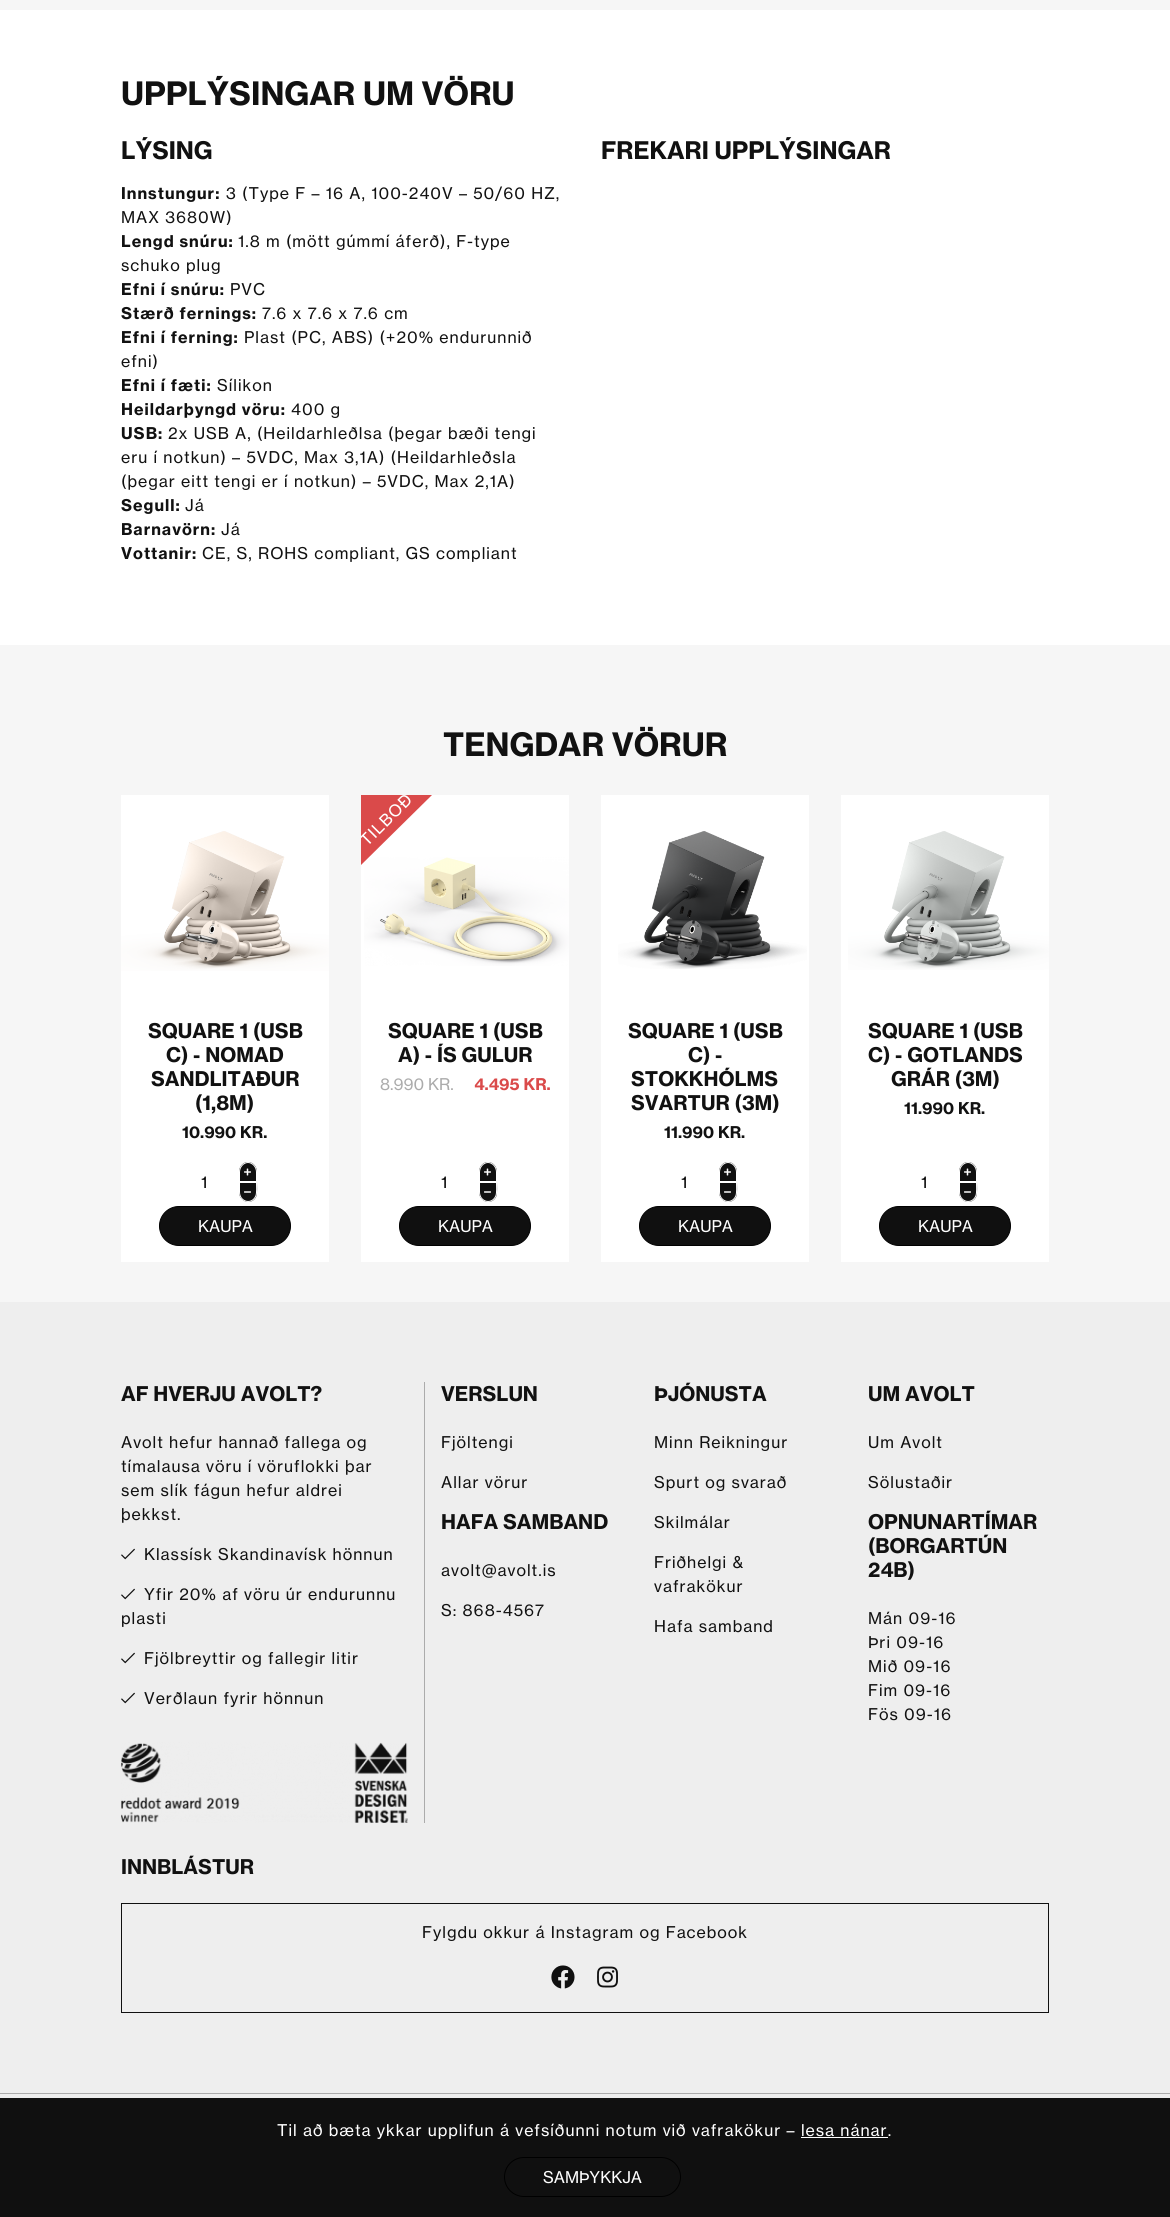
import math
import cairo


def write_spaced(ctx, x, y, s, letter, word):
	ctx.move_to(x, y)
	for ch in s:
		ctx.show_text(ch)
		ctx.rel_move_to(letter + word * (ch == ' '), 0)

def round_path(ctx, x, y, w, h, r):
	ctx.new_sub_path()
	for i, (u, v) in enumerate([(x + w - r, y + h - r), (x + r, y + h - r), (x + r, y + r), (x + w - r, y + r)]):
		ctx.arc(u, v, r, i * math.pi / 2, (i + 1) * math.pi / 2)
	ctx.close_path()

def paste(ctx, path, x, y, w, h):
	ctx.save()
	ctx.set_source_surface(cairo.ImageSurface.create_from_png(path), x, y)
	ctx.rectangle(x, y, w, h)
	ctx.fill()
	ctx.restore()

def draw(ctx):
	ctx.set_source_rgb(0.961, 0.961, 0.961)
	ctx.paint()
	ctx.set_source_rgb(1, 1, 1)
	ctx.rectangle(0, 10, 1170, 635)
	ctx.fill()
	ctx.select_font_face('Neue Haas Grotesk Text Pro', cairo.FONT_SLANT_NORMAL, cairo.FONT_WEIGHT_BOLD)
	ctx.set_font_size(31.75)
	ctx.set_source_rgb(0.067, 0.067, 0.067)
	ctx.move_to(121, 105)
	ctx.show_text('UPPLÝSINGAR UM VÖRU')
	ctx.set_font_size(23.9)
	ctx.move_to(121, 159)
	ctx.show_text('LÝSING')
	ctx.set_font_size(16)
	write_spaced(ctx, 121, 199, 'Innstungur:', 1, 0)
	ctx.select_font_face('Neue Haas Grotesk Text Pro')
	write_spaced(ctx, 226, 199, '3 (Type F – 16 A, 100-240V – 50/60 HZ,', 1, 0)
	write_spaced(ctx, 121, 223, 'MAX 3680W)', 1, 0)
	ctx.select_font_face('Neue Haas Grotesk Text Pro', cairo.FONT_SLANT_NORMAL, cairo.FONT_WEIGHT_BOLD)
	write_spaced(ctx, 121, 247, 'Lengd snúru:', 1, 0)
	ctx.select_font_face('Neue Haas Grotesk Text Pro')
	write_spaced(ctx, 238, 247, '1.8 m (mött gúmmí áferð), F-type', 1, 0)
	write_spaced(ctx, 121, 271, 'schuko plug', 1, 0)
	ctx.select_font_face('Neue Haas Grotesk Text Pro', cairo.FONT_SLANT_NORMAL, cairo.FONT_WEIGHT_BOLD)
	write_spaced(ctx, 121, 295, 'Efni í snúru:', 1, 0)
	ctx.select_font_face('Neue Haas Grotesk Text Pro')
	write_spaced(ctx, 230, 295, 'PVC', 1, 0)
	ctx.select_font_face('Neue Haas Grotesk Text Pro', cairo.FONT_SLANT_NORMAL, cairo.FONT_WEIGHT_BOLD)
	write_spaced(ctx, 121, 319, 'Stærð fernings:', 1, 0)
	ctx.select_font_face('Neue Haas Grotesk Text Pro')
	write_spaced(ctx, 262, 319, '7.6 x 7.6 x 7.6 cm', 1, 0)
	ctx.select_font_face('Neue Haas Grotesk Text Pro', cairo.FONT_SLANT_NORMAL, cairo.FONT_WEIGHT_BOLD)
	write_spaced(ctx, 121, 343, 'Efni í ferning:', 1, 0)
	ctx.select_font_face('Neue Haas Grotesk Text Pro')
	write_spaced(ctx, 244, 343, 'Plast (PC, ABS) (+20% endurunnið', 1, 0)
	write_spaced(ctx, 121, 367, 'efni)', 1, 0)
	ctx.select_font_face('Neue Haas Grotesk Text Pro', cairo.FONT_SLANT_NORMAL, cairo.FONT_WEIGHT_BOLD)
	write_spaced(ctx, 121, 391, 'Efni í fæti:', 1, 0)
	ctx.select_font_face('Neue Haas Grotesk Text Pro')
	write_spaced(ctx, 217, 391, 'Sílikon', 1, 0)
	ctx.select_font_face('Neue Haas Grotesk Text Pro', cairo.FONT_SLANT_NORMAL, cairo.FONT_WEIGHT_BOLD)
	write_spaced(ctx, 121, 415, 'Heildarþyngd vöru:', 1, 0)
	ctx.select_font_face('Neue Haas Grotesk Text Pro')
	write_spaced(ctx, 291, 415, '400 g', 1, 0)
	ctx.select_font_face('Neue Haas Grotesk Text Pro', cairo.FONT_SLANT_NORMAL, cairo.FONT_WEIGHT_BOLD)
	write_spaced(ctx, 121, 439, 'USB:', 1, 0)
	ctx.select_font_face('Neue Haas Grotesk Text Pro')
	for x, y, s in [
		(168, 439, '2x USB A, (Heildarhleðlsa (þegar bæði tengi'),
		(121, 463, 'eru í notkun) – 5VDC, Max 3,1A) (Heildarhleðsla'),
		(121, 487, '(þegar eitt tengi er í notkun) – 5VDC, Max 2,1A)'),
	]:
		write_spaced(ctx, x, y, s, 1, 0)
	ctx.select_font_face('Neue Haas Grotesk Text Pro', cairo.FONT_SLANT_NORMAL, cairo.FONT_WEIGHT_BOLD)
	write_spaced(ctx, 121, 511, 'Segull:', 1, 0)
	ctx.select_font_face('Neue Haas Grotesk Text Pro')
	write_spaced(ctx, 185, 511, 'Já', 1, 0)
	ctx.select_font_face('Neue Haas Grotesk Text Pro', cairo.FONT_SLANT_NORMAL, cairo.FONT_WEIGHT_BOLD)
	write_spaced(ctx, 121, 535, 'Barnavörn:', 1, 0)
	ctx.select_font_face('Neue Haas Grotesk Text Pro')
	write_spaced(ctx, 221, 535, 'Já', 1, 0)
	ctx.select_font_face('Neue Haas Grotesk Text Pro', cairo.FONT_SLANT_NORMAL, cairo.FONT_WEIGHT_BOLD)
	write_spaced(ctx, 121, 559, 'Vottanir:', 1, 0)
	ctx.select_font_face('Neue Haas Grotesk Text Pro')
	write_spaced(ctx, 202, 559, 'CE, S, ROHS compliant, GS compliant', 1, 0)
	ctx.select_font_face('Neue Haas Grotesk Text Pro', cairo.FONT_SLANT_NORMAL, cairo.FONT_WEIGHT_BOLD)
	ctx.set_font_size(23.9)
	ctx.move_to(601, 159)
	ctx.show_text('FREKARI UPPLÝSINGAR')
	ctx.set_font_size(31.75)
	ctx.move_to(443, 756)
	ctx.show_text('TENGDAR VÖRUR')
	ctx.set_source_rgb(1, 1, 1)
	ctx.rectangle(121, 795, 208, 467)
	ctx.fill()
	paste(ctx, 'media/1.png', 121, 831, 208, 140)
	ctx.set_font_size(20)
	ctx.set_source_rgb(0.067, 0.067, 0.067)
	for x, y, s in [
		(148, 1038, 'SQUARE 1 (USB'),
		(166, 1062, 'C) - NOMAD'),
		(151, 1086, 'SANDLITAÐUR'),
		(195, 1110, '(1,8M)'),
	]:
		ctx.move_to(x, y)
		ctx.show_text(s)
	ctx.set_font_size(16)
	ctx.move_to(182, 1138)
	ctx.show_text('10.990 KR.')
	ctx.select_font_face('Neue Haas Grotesk Text Pro')
	ctx.set_source_rgb(0, 0, 0)
	ctx.move_to(201, 1188)
	ctx.show_text('1')
	ctx.set_source_rgb(0.063, 0.063, 0.063)
	ctx.new_path()
	ctx.move_to(248, 1162)
	ctx.curve_to(253, 1162, 257, 1166.5, 257, 1172)
	ctx.line_to(257, 1182)
	ctx.line_to(239, 1182)
	ctx.line_to(239, 1172)
	ctx.curve_to(239, 1166.5, 243, 1162, 248, 1162)
	ctx.close_path()
	ctx.fill()
	ctx.new_path()
	ctx.move_to(248, 1162.5)
	ctx.curve_to(252.5, 1162.5, 256.5, 1167, 256.5, 1172)
	ctx.line_to(256.5, 1181.5)
	ctx.line_to(239.5, 1181.5)
	ctx.line_to(239.5, 1172)
	ctx.curve_to(239.5, 1167, 243.5, 1162.5, 248, 1162.5)
	ctx.close_path()
	ctx.set_source_rgb(1, 1, 1)
	ctx.set_line_width(1)
	ctx.stroke()
	paste(ctx, 'media/2.png', 244, 1168, 7, 8)
	ctx.set_source_rgb(0.063, 0.063, 0.063)
	ctx.new_path()
	ctx.move_to(239, 1182)
	ctx.line_to(257, 1182)
	ctx.curve_to(257, 1186, 257.5, 1192, 256.5, 1196)
	ctx.curve_to(252.5, 1206, 239, 1202.5, 239, 1192)
	ctx.close_path()
	ctx.fill()
	ctx.new_path()
	ctx.move_to(239.5, 1182.5)
	ctx.line_to(256.5, 1182.5)
	ctx.curve_to(256.5, 1186.5, 257, 1192, 256, 1195.5)
	ctx.curve_to(252, 1205.5, 239.5, 1202, 239.5, 1192)
	ctx.close_path()
	ctx.set_source_rgb(1, 1, 1)
	ctx.stroke()
	paste(ctx, 'media/3.png', 244, 1191, 7, 2)
	ctx.set_source_rgb(0.063, 0.063, 0.063)
	round_path(ctx, 159.5, 1206.5, 131, 39, 19.5)
	ctx.fill_preserve()
	ctx.set_source_rgb(0, 0, 0)
	ctx.stroke()
	ctx.set_source_rgb(1, 1, 1)
	ctx.move_to(198, 1232)
	ctx.show_text('KAUPA')
	ctx.rectangle(361, 795, 208, 467)
	ctx.fill()
	paste(ctx, 'media/4.png', 364, 857, 205, 109)
	ctx.save()
	ctx.rectangle(361, 795, 208, 467)
	ctx.clip()
	ctx.set_source_rgb(0.855, 0.29, 0.29)
	ctx.new_path()
	ctx.move_to(290, 795)
	ctx.line_to(361, 724)
	ctx.line_to(432, 795)
	ctx.line_to(361, 865)
	ctx.close_path()
	ctx.fill()
	ctx.set_source_rgb(1, 1, 1)
	ctx.save()
	ctx.translate(367, 847)
	ctx.rotate(-45 * math.pi / 180)
	write_spaced(ctx, 0, 0, 'TILBOÐ', 1, 0)
	ctx.restore()
	ctx.restore()
	ctx.select_font_face('Neue Haas Grotesk Text Pro', cairo.FONT_SLANT_NORMAL, cairo.FONT_WEIGHT_BOLD)
	ctx.set_font_size(20)
	ctx.set_source_rgb(0.067, 0.067, 0.067)
	ctx.move_to(388, 1038)
	ctx.show_text('SQUARE 1 (USB')
	ctx.move_to(398, 1062)
	ctx.show_text('A) - ÍS GULUR')
	ctx.select_font_face('Neue Haas Grotesk Text Pro')
	ctx.set_font_size(16)
	ctx.set_source_rgb(0.671, 0.671, 0.671)
	ctx.move_to(380, 1090)
	ctx.show_text('8.990')
	ctx.move_to(428, 1090)
	ctx.show_text('KR.')
	ctx.select_font_face('Neue Haas Grotesk Text Pro', cairo.FONT_SLANT_NORMAL, cairo.FONT_WEIGHT_BOLD)
	ctx.set_source_rgb(0.855, 0.29, 0.29)
	ctx.move_to(474, 1090)
	ctx.show_text('4.495 KR.')
	ctx.select_font_face('Neue Haas Grotesk Text Pro')
	ctx.set_source_rgb(0, 0, 0)
	ctx.move_to(441, 1188)
	ctx.show_text('1')
	ctx.set_source_rgb(0.063, 0.063, 0.063)
	ctx.new_path()
	ctx.move_to(488, 1162)
	ctx.curve_to(493, 1162, 497, 1166.5, 497, 1172)
	ctx.line_to(497, 1182)
	ctx.line_to(479, 1182)
	ctx.line_to(479, 1172)
	ctx.curve_to(479, 1166.5, 483, 1162, 488, 1162)
	ctx.close_path()
	ctx.fill()
	ctx.new_path()
	ctx.move_to(488, 1162.5)
	ctx.curve_to(492.5, 1162.5, 496.5, 1167, 496.5, 1172)
	ctx.line_to(496.5, 1181.5)
	ctx.line_to(479.5, 1181.5)
	ctx.line_to(479.5, 1172)
	ctx.curve_to(479.5, 1167, 483.5, 1162.5, 488, 1162.5)
	ctx.close_path()
	ctx.set_source_rgb(1, 1, 1)
	ctx.stroke()
	paste(ctx, 'media/2.png', 484, 1168, 7, 8)
	ctx.set_source_rgb(0.063, 0.063, 0.063)
	ctx.new_path()
	ctx.move_to(479, 1182)
	ctx.line_to(497, 1182)
	ctx.curve_to(497, 1186, 497.5, 1192, 496.5, 1196)
	ctx.curve_to(492.5, 1206, 479, 1202.5, 479, 1192)
	ctx.close_path()
	ctx.fill()
	ctx.new_path()
	ctx.move_to(479.5, 1182.5)
	ctx.line_to(496.5, 1182.5)
	ctx.curve_to(496.5, 1186.5, 497, 1192, 496, 1195.5)
	ctx.curve_to(492, 1205.5, 479.5, 1202, 479.5, 1192)
	ctx.close_path()
	ctx.set_source_rgb(1, 1, 1)
	ctx.stroke()
	paste(ctx, 'media/3.png', 484, 1191, 7, 2)
	ctx.set_source_rgb(0.063, 0.063, 0.063)
	round_path(ctx, 399.5, 1206.5, 131, 39, 19.5)
	ctx.fill_preserve()
	ctx.set_source_rgb(0, 0, 0)
	ctx.stroke()
	ctx.set_source_rgb(1, 1, 1)
	ctx.move_to(438, 1232)
	ctx.show_text('KAUPA')
	ctx.rectangle(601, 795, 208, 467)
	ctx.fill()
	paste(ctx, 'media/5.png', 618, 831, 189, 138)
	ctx.select_font_face('Neue Haas Grotesk Text Pro', cairo.FONT_SLANT_NORMAL, cairo.FONT_WEIGHT_BOLD)
	ctx.set_font_size(20)
	ctx.set_source_rgb(0.067, 0.067, 0.067)
	for x, y, s in [
		(628, 1038, 'SQUARE 1 (USB'),
		(688, 1062, 'C) -'),
		(631, 1086, 'STOKKHÓLMS'),
		(631, 1110, 'SVARTUR (3M)'),
	]:
		ctx.move_to(x, y)
		ctx.show_text(s)
	ctx.set_font_size(16)
	ctx.move_to(664, 1138)
	ctx.show_text('11.990 KR.')
	ctx.select_font_face('Neue Haas Grotesk Text Pro')
	ctx.set_source_rgb(0, 0, 0)
	ctx.move_to(681, 1188)
	ctx.show_text('1')
	ctx.set_source_rgb(0.063, 0.063, 0.063)
	ctx.new_path()
	ctx.move_to(728, 1162)
	ctx.curve_to(733, 1162, 737, 1166.5, 737, 1172)
	ctx.line_to(737, 1182)
	ctx.line_to(719, 1182)
	ctx.line_to(719, 1172)
	ctx.curve_to(719, 1166.5, 723, 1162, 728, 1162)
	ctx.close_path()
	ctx.fill()
	ctx.new_path()
	ctx.move_to(728, 1162.5)
	ctx.curve_to(732.5, 1162.5, 736.5, 1167, 736.5, 1172)
	ctx.line_to(736.5, 1181.5)
	ctx.line_to(719.5, 1181.5)
	ctx.line_to(719.5, 1172)
	ctx.curve_to(719.5, 1167, 723.5, 1162.5, 728, 1162.5)
	ctx.close_path()
	ctx.set_source_rgb(1, 1, 1)
	ctx.stroke()
	paste(ctx, 'media/2.png', 724, 1168, 7, 8)
	ctx.set_source_rgb(0.063, 0.063, 0.063)
	ctx.new_path()
	ctx.move_to(719, 1182)
	ctx.line_to(737, 1182)
	ctx.curve_to(737, 1186, 737.5, 1192, 736.5, 1196)
	ctx.curve_to(732.5, 1206, 719, 1202.5, 719, 1192)
	ctx.close_path()
	ctx.fill()
	ctx.new_path()
	ctx.move_to(719.5, 1182.5)
	ctx.line_to(736.5, 1182.5)
	ctx.curve_to(736.5, 1186.5, 737, 1192, 736, 1195.5)
	ctx.curve_to(732, 1205.5, 719.5, 1202, 719.5, 1192)
	ctx.close_path()
	ctx.set_source_rgb(1, 1, 1)
	ctx.stroke()
	paste(ctx, 'media/3.png', 724, 1191, 7, 2)
	ctx.set_source_rgb(0.063, 0.063, 0.063)
	round_path(ctx, 639.5, 1206.5, 131, 39, 19.5)
	ctx.fill_preserve()
	ctx.set_source_rgb(0, 0, 0)
	ctx.stroke()
	ctx.set_source_rgb(1, 1, 1)
	ctx.move_to(678, 1232)
	ctx.show_text('KAUPA')
	ctx.rectangle(841, 795, 208, 467)
	ctx.fill()
	paste(ctx, 'media/6.png', 848, 831, 201, 139)
	ctx.select_font_face('Neue Haas Grotesk Text Pro', cairo.FONT_SLANT_NORMAL, cairo.FONT_WEIGHT_BOLD)
	ctx.set_font_size(20)
	ctx.set_source_rgb(0.067, 0.067, 0.067)
	for x, y, s in [
		(868, 1038, 'SQUARE 1 (USB'),
		(868, 1062, 'C) - GOTLANDS'),
		(891, 1086, 'GRÁR (3M)'),
	]:
		ctx.move_to(x, y)
		ctx.show_text(s)
	ctx.set_font_size(16)
	ctx.move_to(904, 1114)
	ctx.show_text('11.990 KR.')
	ctx.select_font_face('Neue Haas Grotesk Text Pro')
	ctx.set_source_rgb(0, 0, 0)
	ctx.move_to(921, 1188)
	ctx.show_text('1')
	ctx.set_source_rgb(0.063, 0.063, 0.063)
	ctx.new_path()
	ctx.move_to(968, 1162)
	ctx.curve_to(973, 1162, 977, 1166.5, 977, 1172)
	ctx.line_to(977, 1182)
	ctx.line_to(959, 1182)
	ctx.line_to(959, 1172)
	ctx.curve_to(959, 1166.5, 963, 1162, 968, 1162)
	ctx.close_path()
	ctx.fill()
	ctx.new_path()
	ctx.move_to(968, 1162.5)
	ctx.curve_to(972.5, 1162.5, 976.5, 1167, 976.5, 1172)
	ctx.line_to(976.5, 1181.5)
	ctx.line_to(959.5, 1181.5)
	ctx.line_to(959.5, 1172)
	ctx.curve_to(959.5, 1167, 963.5, 1162.5, 968, 1162.5)
	ctx.close_path()
	ctx.set_source_rgb(1, 1, 1)
	ctx.stroke()
	paste(ctx, 'media/2.png', 964, 1168, 7, 8)
	ctx.set_source_rgb(0.063, 0.063, 0.063)
	ctx.new_path()
	ctx.move_to(959, 1182)
	ctx.line_to(977, 1182)
	ctx.curve_to(977, 1186, 977.5, 1192, 976.5, 1196)
	ctx.curve_to(972.5, 1206, 959, 1202.5, 959, 1192)
	ctx.close_path()
	ctx.fill()
	ctx.new_path()
	ctx.move_to(959.5, 1182.5)
	ctx.line_to(976.5, 1182.5)
	ctx.curve_to(976.5, 1186.5, 977, 1192, 976, 1195.5)
	ctx.curve_to(972, 1205.5, 959.5, 1202, 959.5, 1192)
	ctx.close_path()
	ctx.set_source_rgb(1, 1, 1)
	ctx.stroke()
	paste(ctx, 'media/3.png', 964, 1191, 7, 2)
	ctx.set_source_rgb(0.063, 0.063, 0.063)
	round_path(ctx, 879.5, 1206.5, 131, 39, 19.5)
	ctx.fill_preserve()
	ctx.set_source_rgb(0, 0, 0)
	ctx.stroke()
	ctx.set_source_rgb(1, 1, 1)
	ctx.move_to(918, 1232)
	ctx.show_text('KAUPA')
	ctx.set_source_rgb(0.933, 0.933, 0.933)
	ctx.rectangle(0, 1302, 1170, 796)
	ctx.fill()
	ctx.set_source_rgb(0.671, 0.671, 0.671)
	ctx.rectangle(424, 1382, 1, 441)
	ctx.fill()
	ctx.select_font_face('Neue Haas Grotesk Text Pro', cairo.FONT_SLANT_NORMAL, cairo.FONT_WEIGHT_BOLD)
	ctx.set_font_size(20)
	ctx.set_source_rgb(0.067, 0.067, 0.067)
	ctx.move_to(121, 1401)
	ctx.show_text('AF HVERJU AVOLT?')
	ctx.select_font_face('Neue Haas Grotesk Text Pro')
	ctx.set_font_size(16)
	for x, y, s in [
		(121, 1448, 'Avolt hefur hannað fallega og'),
		(121, 1472, 'tímalausa vöru í vöruflokki þar'),
		(121, 1496, 'sem slík fágun hefur aldrei'),
		(121, 1520, 'þekkst.'),
	]:
		write_spaced(ctx, x, y, s, 1, 0)
	paste(ctx, 'media/7.png', 121, 1548, 14, 12)
	write_spaced(ctx, 144, 1560, 'Klassísk Skandinavísk hönnun', 1, 0)
	paste(ctx, 'media/7.png', 121, 1588, 14, 12)
	write_spaced(ctx, 144, 1600, 'Yfir 20% af vöru úr endurunnu', 1, 0)
	write_spaced(ctx, 121, 1624, 'plasti', 1, 0)
	paste(ctx, 'media/7.png', 121, 1652, 14, 12)
	write_spaced(ctx, 144, 1664, 'Fjölbreyttir og fallegir litir', 1, 0)
	paste(ctx, 'media/7.png', 121, 1692, 14, 12)
	write_spaced(ctx, 144, 1704, 'Verðlaun fyrir hönnun', 1, 0)
	paste(ctx, 'media/8.png', 121, 1742, 287, 81)
	ctx.select_font_face('Neue Haas Grotesk Text Pro', cairo.FONT_SLANT_NORMAL, cairo.FONT_WEIGHT_BOLD)
	ctx.set_font_size(20)
	ctx.move_to(441, 1401)
	ctx.show_text('VERSLUN')
	ctx.select_font_face('Neue Haas Grotesk Text Pro')
	ctx.set_font_size(16)
	write_spaced(ctx, 441, 1448, 'Fjöltengi', 1, 0)
	write_spaced(ctx, 441, 1488, 'Allar vörur', 1, 0)
	ctx.select_font_face('Neue Haas Grotesk Text Pro', cairo.FONT_SLANT_NORMAL, cairo.FONT_WEIGHT_BOLD)
	ctx.set_font_size(20)
	ctx.move_to(441, 1529)
	ctx.show_text('HAFA SAMBAND')
	ctx.select_font_face('Neue Haas Grotesk Text Pro')
	ctx.set_font_size(16)
	write_spaced(ctx, 441, 1576, 'avolt@avolt.is', 1, 0)
	write_spaced(ctx, 441, 1616, 'S: 868-4567', 1, 0)
	ctx.select_font_face('Neue Haas Grotesk Text Pro', cairo.FONT_SLANT_NORMAL, cairo.FONT_WEIGHT_BOLD)
	ctx.set_font_size(20)
	ctx.move_to(654, 1401)
	ctx.show_text('ÞJÓNUSTA')
	ctx.select_font_face('Neue Haas Grotesk Text Pro')
	ctx.set_font_size(16)
	for x, y, s in [
		(654, 1448, 'Minn Reikningur'),
		(654, 1488, 'Spurt og svarað'),
		(654, 1528, 'Skilmálar'),
		(654, 1568, 'Friðhelgi &'),
		(654, 1592, 'vafrakökur'),
		(654, 1632, 'Hafa samband'),
	]:
		write_spaced(ctx, x, y, s, 1, 0)
	ctx.select_font_face('Neue Haas Grotesk Text Pro', cairo.FONT_SLANT_NORMAL, cairo.FONT_WEIGHT_BOLD)
	ctx.set_font_size(20)
	ctx.move_to(868, 1401)
	ctx.show_text('UM AVOLT')
	ctx.select_font_face('Neue Haas Grotesk Text Pro')
	ctx.set_font_size(16)
	write_spaced(ctx, 868, 1448, 'Um Avolt', 1, 0)
	write_spaced(ctx, 868, 1488, 'Sölustaðir', 1, 0)
	ctx.select_font_face('Neue Haas Grotesk Text Pro', cairo.FONT_SLANT_NORMAL, cairo.FONT_WEIGHT_BOLD)
	ctx.set_font_size(20)
	for x, y, s in [
		(868, 1529, 'OPNUNARTÍMAR'),
		(868, 1553, '(BORGARTÚN'),
		(868, 1577, '24B)'),
	]:
		ctx.move_to(x, y)
		ctx.show_text(s)
	ctx.select_font_face('Neue Haas Grotesk Text Pro')
	ctx.set_font_size(16)
	for x, y, s in [
		(868, 1624, 'Mán 09-16'),
		(868, 1648, 'Þri 09-16'),
		(868, 1672, 'Mið 09-16'),
		(868, 1696, 'Fim 09-16'),
		(868, 1720, 'Fös 09-16'),
	]:
		write_spaced(ctx, x, y, s, 1, 0)
	ctx.select_font_face('Neue Haas Grotesk Text Pro', cairo.FONT_SLANT_NORMAL, cairo.FONT_WEIGHT_BOLD)
	ctx.set_font_size(20)
	ctx.move_to(121, 1874)
	ctx.show_text('INNBLÁSTUR')
	ctx.rectangle(121.5, 1903.5, 927, 109)
	ctx.set_source_rgb(0.063, 0.063, 0.063)
	ctx.stroke()
	ctx.select_font_face('Neue Haas Grotesk Text Pro')
	ctx.set_font_size(16)
	ctx.set_source_rgb(0.067, 0.067, 0.067)
	write_spaced(ctx, 422, 1938, 'Fylgdu okkur á Instagram og Facebook', 1, 0)
	paste(ctx, 'media/9.png', 551, 1965, 24, 24)
	paste(ctx, 'media/10.png', 597, 1966, 21, 22)
	ctx.set_source_rgb(0.671, 0.671, 0.671)
	ctx.rectangle(0, 2093, 1170, 1)
	ctx.fill()
	ctx.set_source_rgb(0.063, 0.063, 0.063)
	ctx.rectangle(0, 2098, 1170, 119)
	ctx.fill()
	ctx.set_source_rgb(1, 1, 1)
	write_spaced(ctx, 277, 2136, 'Til að bæta ykkar upplifun á vefsíðunni notum við vafrakökur – lesa nánar.', 1, 0)
	ctx.rectangle(801, 2137, 87, 1)
	ctx.fill()
	round_path(ctx, 504.5, 2157.5, 176, 39, 19.5)
	ctx.set_source_rgb(0, 0, 0)
	ctx.stroke()
	ctx.set_source_rgb(1, 1, 1)
	ctx.move_to(543, 2183)
	ctx.show_text('SAMÞYKKJA')


surface = cairo.ImageSurface(cairo.FORMAT_RGB24, 1170, 2217)
ctx = cairo.Context(surface)
options = cairo.FontOptions()
options.set_hint_metrics(cairo.HINT_METRICS_OFF)
options.set_hint_style(cairo.HINT_STYLE_NONE)
ctx.set_font_options(options)
ctx.set_miter_limit(4)
draw(ctx)
surface.write_to_png('image.png')
